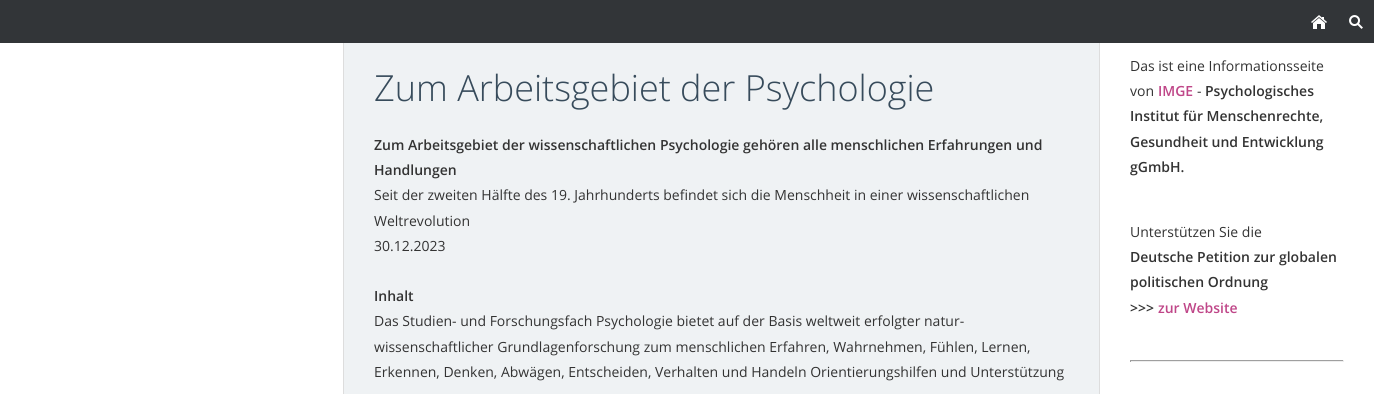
import math
import cairo


def paste(ctx, path, x, y, w, h):
	ctx.save()
	ctx.set_source_surface(cairo.ImageSurface.create_from_png(path), x, y)
	ctx.rectangle(x, y, w, h)
	ctx.fill()
	ctx.restore()

def draw(ctx):
	ctx.set_source_rgb(0.196, 0.208, 0.22)
	ctx.paint()
	paste(ctx, 'media/1.png', 1311, 15, 16, 14)
	paste(ctx, 'media/2.png', 1349, 15, 14, 14)
	ctx.set_source_rgb(1, 1, 1)
	ctx.rectangle(0, 43, 343, 351)
	ctx.fill()
	ctx.set_source_rgb(0.867, 0.867, 0.867)
	ctx.rectangle(343, 43, 1, 351)
	ctx.fill()
	ctx.set_source_rgb(0.937, 0.949, 0.957)
	ctx.rectangle(344, 43, 755, 351)
	ctx.fill()
	ctx.select_font_face('Open Sans Light')
	ctx.set_font_size(36)
	ctx.set_source_rgb(0.216, 0.294, 0.357)
	ctx.move_to(374, 101)
	ctx.show_text('Zum Arbeitsgebiet der Psychologie')
	ctx.select_font_face('Open Sans SemiBold')
	ctx.set_font_size(14)
	ctx.set_source_rgb(0.2, 0.2, 0.2)
	ctx.move_to(374, 150)
	ctx.show_text('Zum Arbeitsgebiet der wissenschaftlichen Psychologie gehören alle menschlichen Erfahrungen und')
	ctx.move_to(374, 175)
	ctx.show_text('Handlungen')
	ctx.select_font_face('Open Sans')
	for x, y, s in [
		(374, 200, 'Seit der zweiten Hälfte des 19. Jahrhunderts befindet sich die Menschheit in einer wissenschaftlichen'),
		(374, 226, 'Weltrevolution'),
		(374, 251, '30.12.2023'),
	]:
		ctx.move_to(x, y)
		ctx.show_text(s)
	ctx.select_font_face('Open Sans SemiBold')
	ctx.move_to(374, 301)
	ctx.show_text('Inhalt')
	ctx.select_font_face('Open Sans')
	for x, y, s in [
		(374, 326, 'Das Studien- und Forschungsfach Psychologie bietet auf der Basis weltweit erfolgter natur-'),
		(374, 352, 'wissenschaftlicher Grundlagenforschung zum menschlichen Erfahren, Wahrnehmen, Fühlen, Lernen,'),
		(374, 377, 'Erkennen, Denken, Abwägen, Entscheiden, Verhalten und Handeln Orientierungshilfen und Unterstützung'),
	]:
		ctx.move_to(x, y)
		ctx.show_text(s)
	ctx.set_source_rgb(1, 1, 1)
	ctx.rectangle(1100, 43, 274, 351)
	ctx.fill()
	ctx.set_source_rgb(0.867, 0.867, 0.867)
	ctx.rectangle(1099, 43, 1, 351)
	ctx.fill()
	ctx.set_source_rgb(0.2, 0.2, 0.2)
	ctx.move_to(1130, 71)
	ctx.show_text('Das ist eine Informationsseite')
	ctx.move_to(1130, 96)
	ctx.show_text('von')
	ctx.select_font_face('Open Sans SemiBold')
	ctx.set_source_rgb(0.749, 0.275, 0.533)
	ctx.move_to(1158, 96)
	ctx.show_text('IMGE')
	ctx.select_font_face('Open Sans')
	ctx.set_source_rgb(0.2, 0.2, 0.2)
	ctx.move_to(1197, 96)
	ctx.show_text('-')
	ctx.select_font_face('Open Sans SemiBold')
	for x, y, s in [
		(1205, 96, 'Psychologisches'),
		(1130, 121, 'Institut für Menschenrechte,'),
		(1130, 147, 'Gesundheit und Entwicklung'),
		(1130, 172, 'gGmbH.'),
	]:
		ctx.move_to(x, y)
		ctx.show_text(s)
	ctx.select_font_face('Open Sans')
	ctx.move_to(1130, 237)
	ctx.show_text('Unterstützen Sie die')
	ctx.select_font_face('Open Sans SemiBold')
	for x, y, s in [
		(1130, 262, 'Deutsche Petition zur globalen'),
		(1130, 287, 'politischen Ordnung'),
		(1130, 313, '>>>'),
	]:
		ctx.move_to(x, y)
		ctx.show_text(s)
	ctx.set_source_rgb(0.749, 0.275, 0.533)
	ctx.move_to(1158, 313)
	ctx.show_text('zur Website')
	ctx.set_source_rgb(0.624, 0.624, 0.624)
	ctx.rectangle(1130, 360, 214, 1)
	ctx.fill()
	ctx.set_source_rgb(0.933, 0.933, 0.933)
	ctx.rectangle(1343, 360, 1, 2)
	ctx.rectangle(1130, 361, 214, 1)
	ctx.fill()
	ctx.set_source_rgb(0.624, 0.624, 0.624)
	ctx.rectangle(1130, 360, 1, 2)
	ctx.fill()


surface = cairo.ImageSurface(cairo.FORMAT_RGB24, 1374, 394)
ctx = cairo.Context(surface)
options = cairo.FontOptions()
options.set_hint_metrics(cairo.HINT_METRICS_OFF)
options.set_hint_style(cairo.HINT_STYLE_NONE)
ctx.set_font_options(options)
ctx.set_miter_limit(4)
draw(ctx)
surface.write_to_png('image.png')
